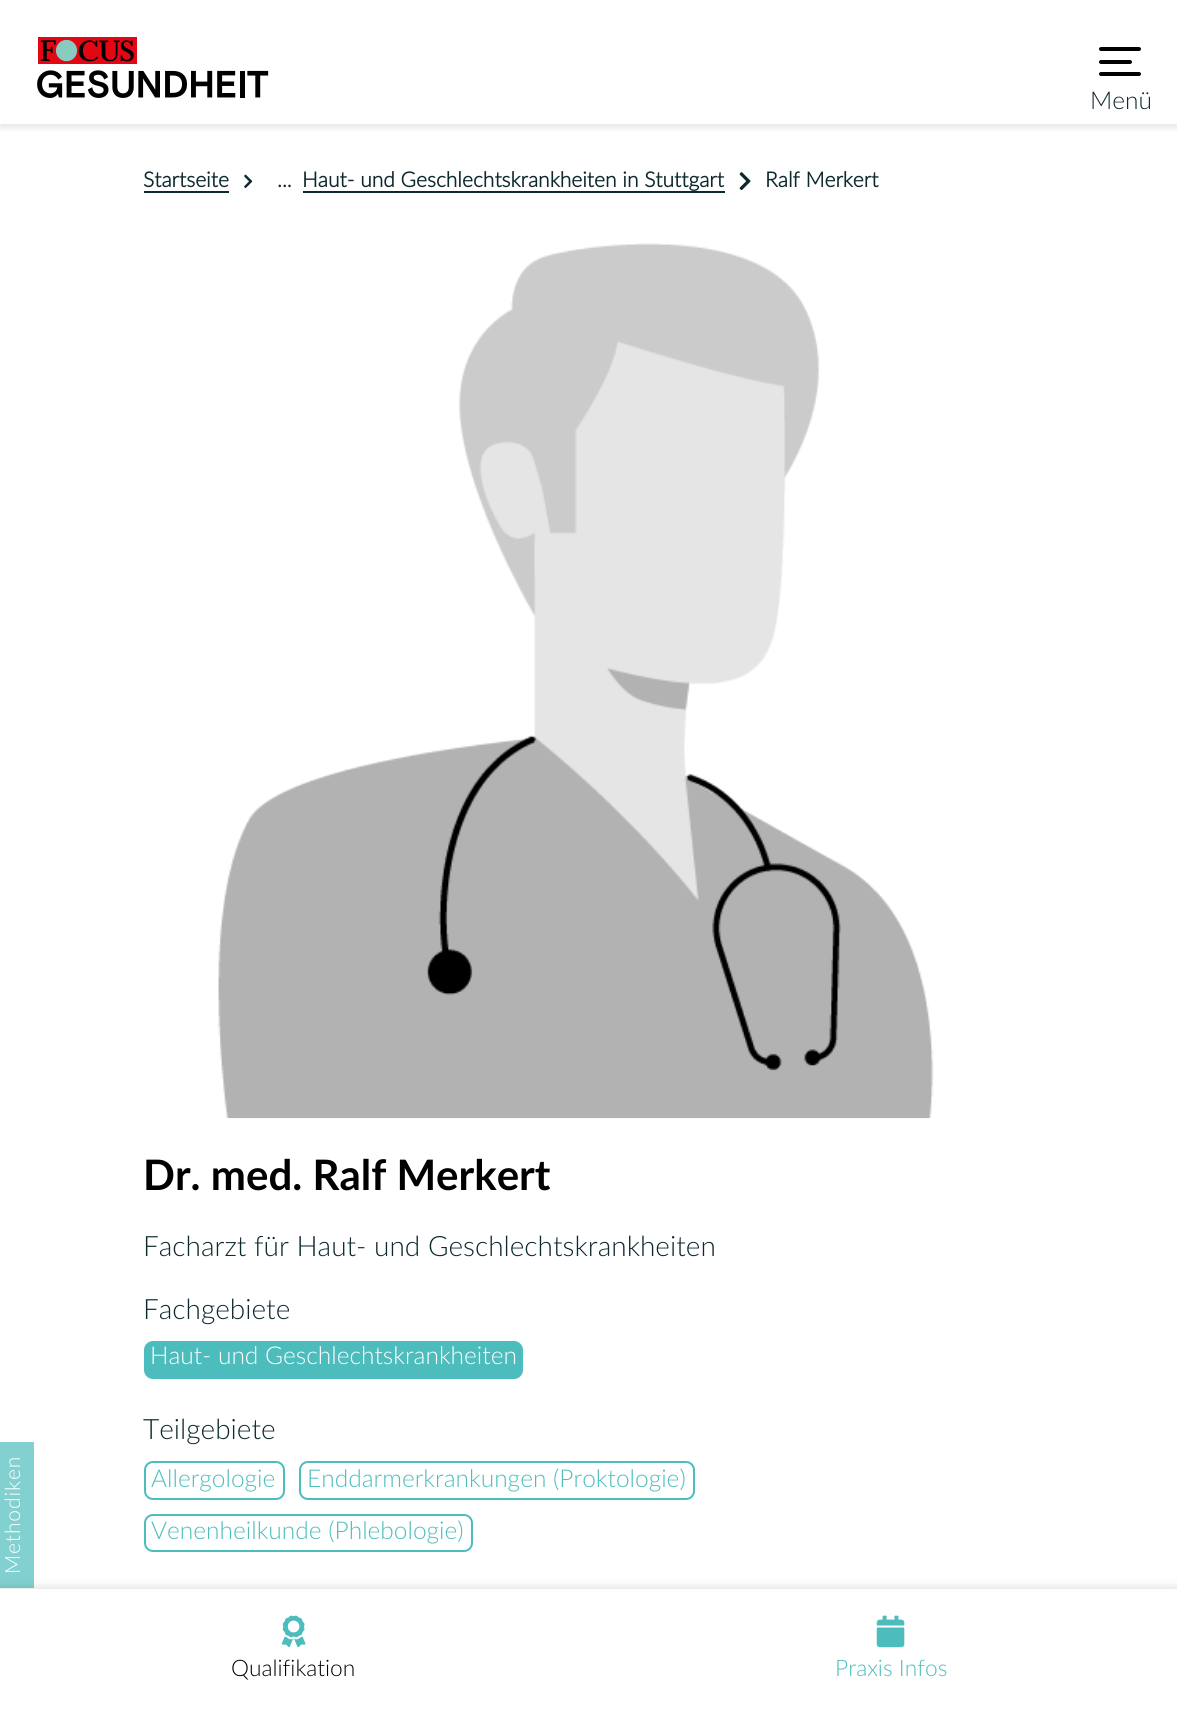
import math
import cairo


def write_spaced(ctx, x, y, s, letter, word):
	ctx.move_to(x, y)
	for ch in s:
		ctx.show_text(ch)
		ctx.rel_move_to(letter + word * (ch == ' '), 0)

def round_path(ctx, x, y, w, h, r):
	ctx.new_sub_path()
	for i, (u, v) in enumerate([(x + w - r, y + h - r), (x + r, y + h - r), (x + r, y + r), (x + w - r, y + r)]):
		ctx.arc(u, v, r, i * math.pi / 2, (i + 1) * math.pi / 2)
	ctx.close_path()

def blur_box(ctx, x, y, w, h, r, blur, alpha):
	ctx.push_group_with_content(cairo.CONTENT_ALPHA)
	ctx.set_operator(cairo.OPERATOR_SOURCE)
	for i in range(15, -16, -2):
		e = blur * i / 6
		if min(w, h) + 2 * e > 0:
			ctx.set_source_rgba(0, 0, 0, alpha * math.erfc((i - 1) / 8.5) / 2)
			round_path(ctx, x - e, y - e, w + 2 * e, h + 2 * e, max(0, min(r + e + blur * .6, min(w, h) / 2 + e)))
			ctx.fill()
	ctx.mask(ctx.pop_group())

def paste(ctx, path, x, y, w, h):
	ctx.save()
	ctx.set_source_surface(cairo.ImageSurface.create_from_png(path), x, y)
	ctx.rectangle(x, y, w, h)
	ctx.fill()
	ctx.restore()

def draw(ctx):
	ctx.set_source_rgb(1, 1, 1)
	ctx.paint()
	ctx.save()
	ctx.rectangle(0, 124, 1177, 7)
	ctx.clip()
	ctx.set_source_rgb(0, 0, 0)
	blur_box(ctx, 0, 4, 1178, 124, 0, 3.5, 0.1)
	ctx.restore()
	paste(ctx, 'media/1.png', 37, 37, 232, 61)
	ctx.set_source_rgb(0, 0, 0)
	round_path(ctx, 1099, 47, 42, 4, 2)
	ctx.fill()
	round_path(ctx, 1099, 60, 33, 4, 2)
	ctx.fill()
	round_path(ctx, 1099, 72, 42, 4, 2)
	ctx.fill()
	ctx.select_font_face('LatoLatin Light')
	ctx.set_font_size(24.5)
	ctx.set_source_rgb(0.051, 0.161, 0.18)
	ctx.move_to(1090, 109)
	ctx.show_text('Menü')
	ctx.set_source_rgb(0.51, 0.82, 0.816)
	ctx.rectangle(0, 1442, 34, 146)
	ctx.fill()
	ctx.set_font_size(21)
	ctx.set_source_rgb(1, 1, 1)
	ctx.save()
	ctx.translate(20, 1574)
	ctx.rotate(-90 * math.pi / 180)
	write_spaced(ctx, 0, 0, 'Methodiken', 0.9, 0)
	ctx.restore()
	ctx.select_font_face('LatoLatin', cairo.FONT_SLANT_NORMAL, cairo.FONT_WEIGHT_BOLD)
	ctx.set_source_rgb(0.051, 0.161, 0.18)
	ctx.move_to(143, 187)
	ctx.show_text('Startseite')
	ctx.rectangle(144, 191, 85, 2)
	ctx.fill()
	paste(ctx, 'media/2.png', 244, 174, 9, 14)
	ctx.move_to(277, 187)
	ctx.show_text('...')
	ctx.move_to(302, 187)
	ctx.show_text('Haut- und Geschlechtskrankheiten in Stuttgart')
	ctx.rectangle(303, 191, 422, 2)
	ctx.fill()
	paste(ctx, 'media/3.png', 739, 172, 12, 19)
	ctx.move_to(765, 187)
	ctx.show_text('Ralf Merkert')
	paste(ctx, 'media/4.png', 218, 243, 716, 876)
	ctx.select_font_face('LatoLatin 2', cairo.FONT_SLANT_NORMAL, cairo.FONT_WEIGHT_BOLD)
	ctx.set_font_size(42)
	ctx.set_source_rgb(0, 0, 0)
	ctx.move_to(143, 1190)
	ctx.show_text('Dr. med. Ralf Merkert')
	ctx.select_font_face('LatoLatin Light')
	ctx.set_font_size(28)
	ctx.set_source_rgb(0.051, 0.161, 0.18)
	ctx.move_to(143, 1256)
	ctx.show_text('Facharzt für Haut- und Geschlechtskrankheiten')
	ctx.move_to(143, 1319)
	ctx.show_text('Fachgebiete')
	ctx.set_source_rgb(0.298, 0.741, 0.737)
	round_path(ctx, 144, 1341, 379, 38, 9)
	ctx.fill()
	ctx.set_font_size(24.5)
	ctx.set_source_rgb(1, 1, 1)
	ctx.move_to(150, 1364)
	ctx.show_text('Haut- und Geschlechtskrankheiten')
	ctx.set_font_size(28)
	ctx.set_source_rgb(0.051, 0.161, 0.18)
	ctx.move_to(143, 1439)
	ctx.show_text('Teilgebiete')
	round_path(ctx, 145, 1462, 139, 37, 8)
	ctx.set_source_rgb(0.298, 0.741, 0.737)
	ctx.stroke()
	ctx.set_font_size(24.5)
	ctx.move_to(151, 1487)
	ctx.show_text('Allergologie')
	round_path(ctx, 300, 1462, 394, 37, 8)
	ctx.stroke()
	ctx.move_to(307, 1487)
	ctx.show_text('Enddarmerkrankungen (Proktologie)')
	round_path(ctx, 145, 1515, 327, 36, 8)
	ctx.stroke()
	ctx.move_to(151, 1539)
	ctx.show_text('Venenheilkunde (Phlebologie)')
	ctx.set_source_rgb(0, 0, 0)
	blur_box(ctx, 0, 1586, 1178, 122, 0, 4.5, 0.1)
	ctx.set_source_rgb(1, 1, 1)
	ctx.rectangle(0, 1589, 1177, 122)
	ctx.fill()
	paste(ctx, 'media/5.png', 281, 1615, 25, 33)
	ctx.set_font_size(22.75)
	ctx.set_source_rgb(0, 0, 0)
	ctx.move_to(231, 1676)
	ctx.show_text('Qualifikation')
	paste(ctx, 'media/6.png', 876, 1615, 29, 33)
	ctx.set_source_rgb(0.298, 0.741, 0.737)
	ctx.move_to(835, 1676)
	ctx.show_text('Praxis Infos')


surface = cairo.ImageSurface(cairo.FORMAT_RGB24, 1177, 1711)
ctx = cairo.Context(surface)
options = cairo.FontOptions()
options.set_hint_metrics(cairo.HINT_METRICS_OFF)
options.set_hint_style(cairo.HINT_STYLE_NONE)
ctx.set_font_options(options)
ctx.set_miter_limit(4)
draw(ctx)
surface.write_to_png('image.png')
